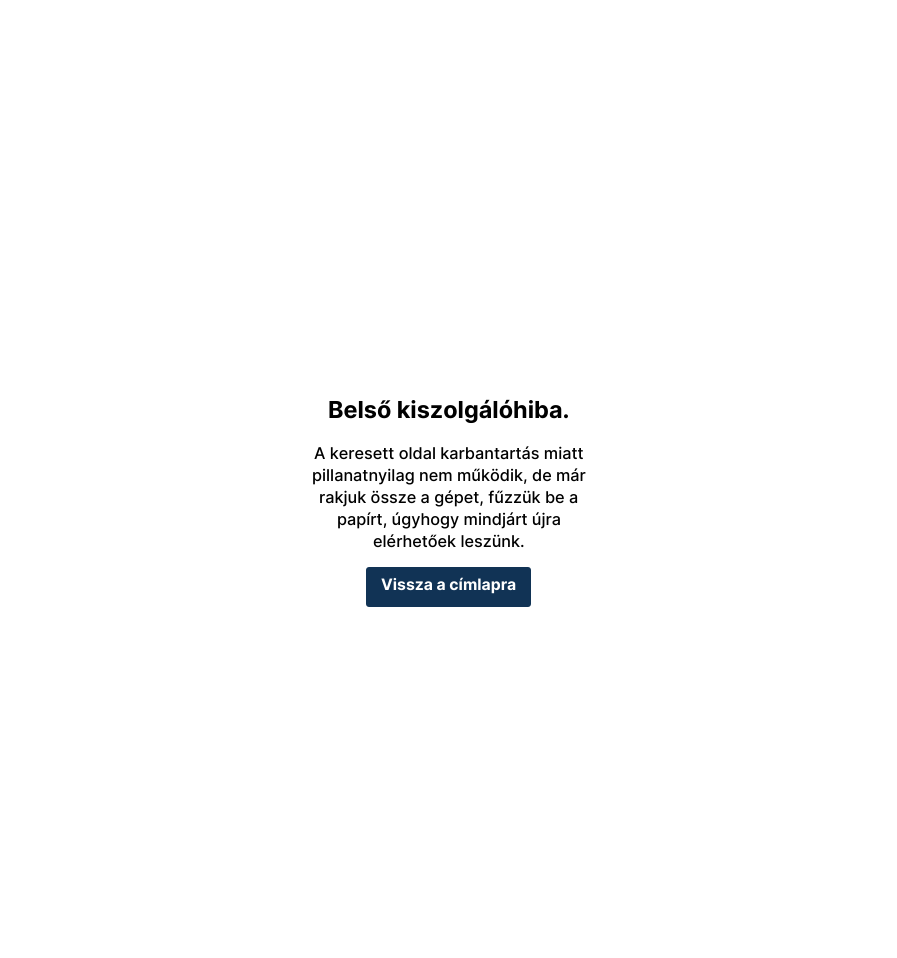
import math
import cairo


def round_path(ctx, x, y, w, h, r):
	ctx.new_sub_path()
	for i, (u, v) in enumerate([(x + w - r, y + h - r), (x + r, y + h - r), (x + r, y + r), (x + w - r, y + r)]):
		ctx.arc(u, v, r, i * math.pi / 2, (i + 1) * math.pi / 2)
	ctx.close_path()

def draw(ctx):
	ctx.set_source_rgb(1, 1, 1)
	ctx.paint()
	ctx.select_font_face('Inter', cairo.FONT_SLANT_NORMAL, cairo.FONT_WEIGHT_BOLD)
	ctx.set_font_size(23.4)
	ctx.set_source_rgb(0, 0, 0)
	ctx.move_to(328, 418)
	ctx.show_text('Belső kiszolgálóhiba.')
	ctx.select_font_face('Inter Medium')
	ctx.set_font_size(16.25)
	for x, y, s in [
		(314, 459, 'A keresett oldal karbantartás miatt'),
		(312, 481, 'pillanatnyilag nem működik, de már'),
		(319, 503, 'rakjuk össze a gépet, fűzzük be a'),
		(337, 525, 'papírt, úgyhogy mindjárt újra'),
		(373, 547, 'elérhetőek leszünk.'),
	]:
		ctx.move_to(x, y)
		ctx.show_text(s)
	ctx.set_source_rgb(0.067, 0.2, 0.333)
	round_path(ctx, 366, 567, 165, 40, 3)
	ctx.fill()
	ctx.select_font_face('Inter', cairo.FONT_SLANT_NORMAL, cairo.FONT_WEIGHT_BOLD)
	ctx.set_font_size(15.75)
	ctx.set_source_rgb(1, 1, 1)
	ctx.move_to(381, 590)
	ctx.show_text('Vissza a címlapra')


surface = cairo.ImageSurface(cairo.FORMAT_RGB24, 897, 958)
ctx = cairo.Context(surface)
options = cairo.FontOptions()
options.set_hint_metrics(cairo.HINT_METRICS_OFF)
options.set_hint_style(cairo.HINT_STYLE_NONE)
ctx.set_font_options(options)
ctx.set_miter_limit(4)
draw(ctx)
surface.write_to_png('image.png')
